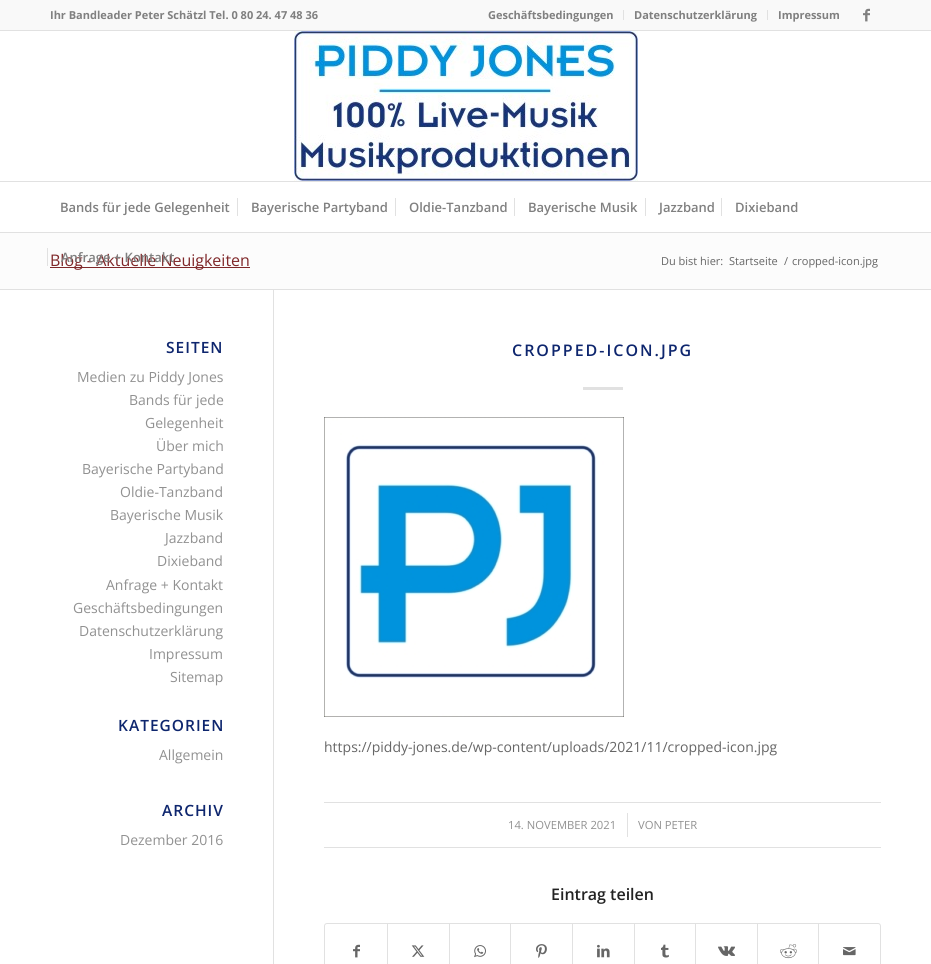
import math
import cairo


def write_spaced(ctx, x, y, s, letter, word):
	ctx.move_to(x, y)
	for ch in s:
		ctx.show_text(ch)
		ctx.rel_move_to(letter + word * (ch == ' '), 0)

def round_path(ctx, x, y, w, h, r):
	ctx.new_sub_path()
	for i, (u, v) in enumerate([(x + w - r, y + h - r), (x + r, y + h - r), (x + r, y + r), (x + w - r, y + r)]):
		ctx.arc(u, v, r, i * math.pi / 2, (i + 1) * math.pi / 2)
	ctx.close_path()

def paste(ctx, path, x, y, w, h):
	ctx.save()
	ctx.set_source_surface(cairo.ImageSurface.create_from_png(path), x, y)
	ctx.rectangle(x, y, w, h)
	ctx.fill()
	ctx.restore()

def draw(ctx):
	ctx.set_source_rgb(1, 1, 1)
	ctx.paint()
	ctx.set_source_rgb(0.973, 0.973, 0.973)
	ctx.rectangle(0, 0, 931, 30)
	ctx.fill()
	ctx.set_source_rgb(0.882, 0.882, 0.882)
	ctx.rectangle(0, 30, 931, 1)
	ctx.fill()
	ctx.select_font_face('Open Sans', cairo.FONT_SLANT_NORMAL, cairo.FONT_WEIGHT_BOLD)
	ctx.set_font_size(11)
	ctx.set_source_rgb(0.502, 0.502, 0.502)
	ctx.move_to(50, 19)
	ctx.show_text('Ihr Bandleader Peter Schätzl Tel. 0 80 24. 47 48 36')
	ctx.set_source_rgb(0.882, 0.882, 0.882)
	ctx.rectangle(623, 10, 1, 10)
	ctx.fill()
	ctx.set_source_rgb(0.502, 0.502, 0.502)
	ctx.move_to(488, 19)
	ctx.show_text('Geschäftsbedingungen')
	ctx.set_source_rgb(0.882, 0.882, 0.882)
	ctx.rectangle(767, 10, 1, 10)
	ctx.fill()
	ctx.set_source_rgb(0.502, 0.502, 0.502)
	ctx.move_to(634, 19)
	ctx.show_text('Datenschutzerklärung')
	ctx.move_to(778, 19)
	ctx.show_text('Impressum')
	paste(ctx, 'media/1.png', 863, 8, 7, 14)
	ctx.set_source_rgb(0.882, 0.882, 0.882)
	ctx.rectangle(0, 232, 931, 1)
	ctx.fill()
	paste(ctx, 'media/2.png', 294, 31, 344, 150)
	ctx.rectangle(0, 181, 931, 1)
	ctx.fill()
	ctx.select_font_face('Open Sans SemiBold')
	ctx.set_font_size(13)
	ctx.set_source_rgb(0.502, 0.502, 0.502)
	ctx.move_to(60, 212)
	ctx.show_text('Bands für jede Gelegenheit')
	ctx.move_to(251, 212)
	ctx.show_text('Bayerische Partyband')
	ctx.set_source_rgb(0.882, 0.882, 0.882)
	ctx.rectangle(237, 198, 1, 18)
	ctx.fill()
	ctx.set_source_rgb(0.502, 0.502, 0.502)
	ctx.move_to(409, 212)
	ctx.show_text('Oldie-Tanzband')
	ctx.set_source_rgb(0.882, 0.882, 0.882)
	ctx.rectangle(395, 198, 1, 18)
	ctx.fill()
	ctx.set_source_rgb(0.502, 0.502, 0.502)
	ctx.move_to(528, 212)
	ctx.show_text('Bayerische Musik')
	ctx.set_source_rgb(0.882, 0.882, 0.882)
	ctx.rectangle(514, 198, 1, 18)
	ctx.fill()
	ctx.set_source_rgb(0.502, 0.502, 0.502)
	ctx.move_to(659, 212)
	ctx.show_text('Jazzband')
	ctx.set_source_rgb(0.882, 0.882, 0.882)
	ctx.rectangle(645, 198, 1, 18)
	ctx.fill()
	ctx.set_source_rgb(0.502, 0.502, 0.502)
	ctx.move_to(735, 212)
	ctx.show_text('Dixieband')
	ctx.set_source_rgb(0.882, 0.882, 0.882)
	ctx.rectangle(721, 198, 1, 18)
	ctx.fill()
	ctx.set_source_rgb(0.988, 0.988, 0.988)
	ctx.rectangle(0, 233, 931, 56)
	ctx.fill()
	ctx.set_source_rgb(0.498, 0.153, 0.161)
	ctx.rectangle(50, 267, 200, 1)
	ctx.fill()
	ctx.select_font_face('Open Sans')
	ctx.set_font_size(16)
	ctx.move_to(50, 266)
	ctx.show_text('Blog - Aktuelle Neuigkeiten')
	ctx.select_font_face('Open Sans SemiBold')
	ctx.set_font_size(13)
	ctx.set_source_rgb(0.502, 0.502, 0.502)
	ctx.move_to(61, 262)
	ctx.show_text('Anfrage + Kontakt')
	ctx.set_source_rgb(0.882, 0.882, 0.882)
	ctx.rectangle(47, 248, 1, 18)
	ctx.fill()
	ctx.select_font_face('Open Sans')
	ctx.set_font_size(11)
	ctx.set_source_rgb(0.4, 0.4, 0.4)
	for x, y, s in [
		(661, 265, 'Du bist hier:'),
		(729, 265, 'Startseite'),
		(784, 265, '/'),
		(792, 265, 'cropped-icon.jpg'),
	]:
		ctx.move_to(x, y)
		ctx.show_text(s)
	ctx.set_source_rgb(0.882, 0.882, 0.882)
	ctx.rectangle(0, 289, 931, 1)
	ctx.fill()
	ctx.select_font_face('Open Sans SemiBold')
	ctx.set_font_size(15.5)
	ctx.set_source_rgb(0.055, 0.149, 0.431)
	write_spaced(ctx, 166, 353, 'SEITEN', 1, 0)
	ctx.select_font_face('Open Sans')
	ctx.set_font_size(14)
	ctx.set_source_rgb(0.569, 0.569, 0.569)
	for x, y, s in [
		(77, 382, 'Medien zu Piddy Jones'),
		(129, 405, 'Bands für jede'),
		(145, 428, 'Gelegenheit'),
		(156, 451, 'Über mich'),
		(82, 474, 'Bayerische Partyband'),
		(120, 497, 'Oldie-Tanzband'),
		(110, 520, 'Bayerische Musik'),
		(165, 543, 'Jazzband'),
		(157, 566, 'Dixieband'),
		(106, 590, 'Anfrage + Kontakt'),
		(73, 613, 'Geschäftsbedingungen'),
		(79, 636, 'Datenschutzerklärung'),
		(149, 659, 'Impressum'),
		(170, 682, 'Sitemap'),
	]:
		ctx.move_to(x, y)
		ctx.show_text(s)
	ctx.select_font_face('Open Sans SemiBold')
	ctx.set_font_size(15.5)
	ctx.set_source_rgb(0.055, 0.149, 0.431)
	write_spaced(ctx, 118, 731, 'KATEGORIEN', 1, 0)
	ctx.select_font_face('Open Sans')
	ctx.set_font_size(14)
	ctx.set_source_rgb(0.569, 0.569, 0.569)
	ctx.move_to(159, 760)
	ctx.show_text('Allgemein')
	ctx.select_font_face('Open Sans SemiBold')
	ctx.set_font_size(15.5)
	ctx.set_source_rgb(0.055, 0.149, 0.431)
	write_spaced(ctx, 162, 816, 'ARCHIV', 1, 0)
	ctx.select_font_face('Open Sans')
	ctx.set_font_size(14)
	ctx.set_source_rgb(0.569, 0.569, 0.569)
	ctx.move_to(120, 845)
	ctx.show_text('Dezember 2016')
	ctx.set_source_rgb(0.882, 0.882, 0.882)
	ctx.rectangle(273, 290, 1, 674)
	ctx.fill()
	ctx.select_font_face('Open Sans SemiBold')
	ctx.set_font_size(16)
	ctx.set_source_rgb(0.055, 0.149, 0.431)
	write_spaced(ctx, 512, 356, 'CROPPED-ICON.JPG', 2, 0)
	ctx.set_source_rgb(0.882, 0.882, 0.882)
	ctx.rectangle(583, 387, 40, 3)
	ctx.fill()
	paste(ctx, 'media/3.png', 324, 417, 300, 300)
	ctx.select_font_face('Open Sans')
	ctx.set_font_size(14)
	ctx.set_source_rgb(0.4, 0.4, 0.4)
	ctx.move_to(324, 752)
	ctx.show_text('https://piddy-jones.de/wp-content/uploads/2021/11/cropped-icon.jpg')
	ctx.set_source_rgb(0.882, 0.882, 0.882)
	ctx.rectangle(324, 802, 557, 1)
	ctx.fill()
	ctx.rectangle(324, 847, 557, 1)
	ctx.fill()
	ctx.set_font_size(11.25)
	ctx.set_source_rgb(0.569, 0.569, 0.569)
	ctx.move_to(508, 829)
	ctx.show_text('14. NOVEMBER 2021')
	ctx.set_source_rgb(0.882, 0.882, 0.882)
	ctx.rectangle(627, 813, 1, 24)
	ctx.fill()
	ctx.set_source_rgb(0.569, 0.569, 0.569)
	ctx.move_to(638, 829)
	ctx.show_text('VON PETER')
	ctx.select_font_face('Open Sans SemiBold')
	ctx.set_font_size(16)
	ctx.set_source_rgb(0.133, 0.133, 0.133)
	ctx.move_to(551, 900)
	ctx.show_text('Eintrag teilen')
	round_path(ctx, 324.5, 923.5, 556, 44, 2.5)
	ctx.set_source_rgb(0.882, 0.882, 0.882)
	ctx.set_line_width(1)
	ctx.stroke()
	paste(ctx, 'media/4.png', 353, 944, 7, 14)
	ctx.rectangle(387, 924, 1, 40)
	ctx.fill()
	paste(ctx, 'media/5.png', 411, 945, 14, 12)
	ctx.rectangle(449, 924, 1, 40)
	ctx.fill()
	paste(ctx, 'media/6.png', 474, 945, 12, 13)
	ctx.rectangle(510, 924, 1, 40)
	ctx.fill()
	paste(ctx, 'media/7.png', 536, 944, 11, 14)
	ctx.rectangle(572, 924, 1, 40)
	ctx.fill()
	paste(ctx, 'media/8.png', 597, 944, 13, 14)
	ctx.rectangle(634, 924, 1, 40)
	ctx.fill()
	paste(ctx, 'media/9.png', 661, 944, 8, 14)
	ctx.rectangle(695, 924, 1, 40)
	ctx.fill()
	paste(ctx, 'media/10.png', 718, 946, 17, 10)
	ctx.rectangle(757, 924, 1, 40)
	ctx.fill()
	paste(ctx, 'media/11.png', 780, 944, 17, 15)
	ctx.rectangle(818, 924, 1, 40)
	ctx.fill()
	paste(ctx, 'media/12.png', 843, 947, 13, 9)


surface = cairo.ImageSurface(cairo.FORMAT_RGB24, 931, 964)
ctx = cairo.Context(surface)
options = cairo.FontOptions()
options.set_hint_metrics(cairo.HINT_METRICS_OFF)
options.set_hint_style(cairo.HINT_STYLE_NONE)
ctx.set_font_options(options)
ctx.set_miter_limit(4)
draw(ctx)
surface.write_to_png('image.png')
